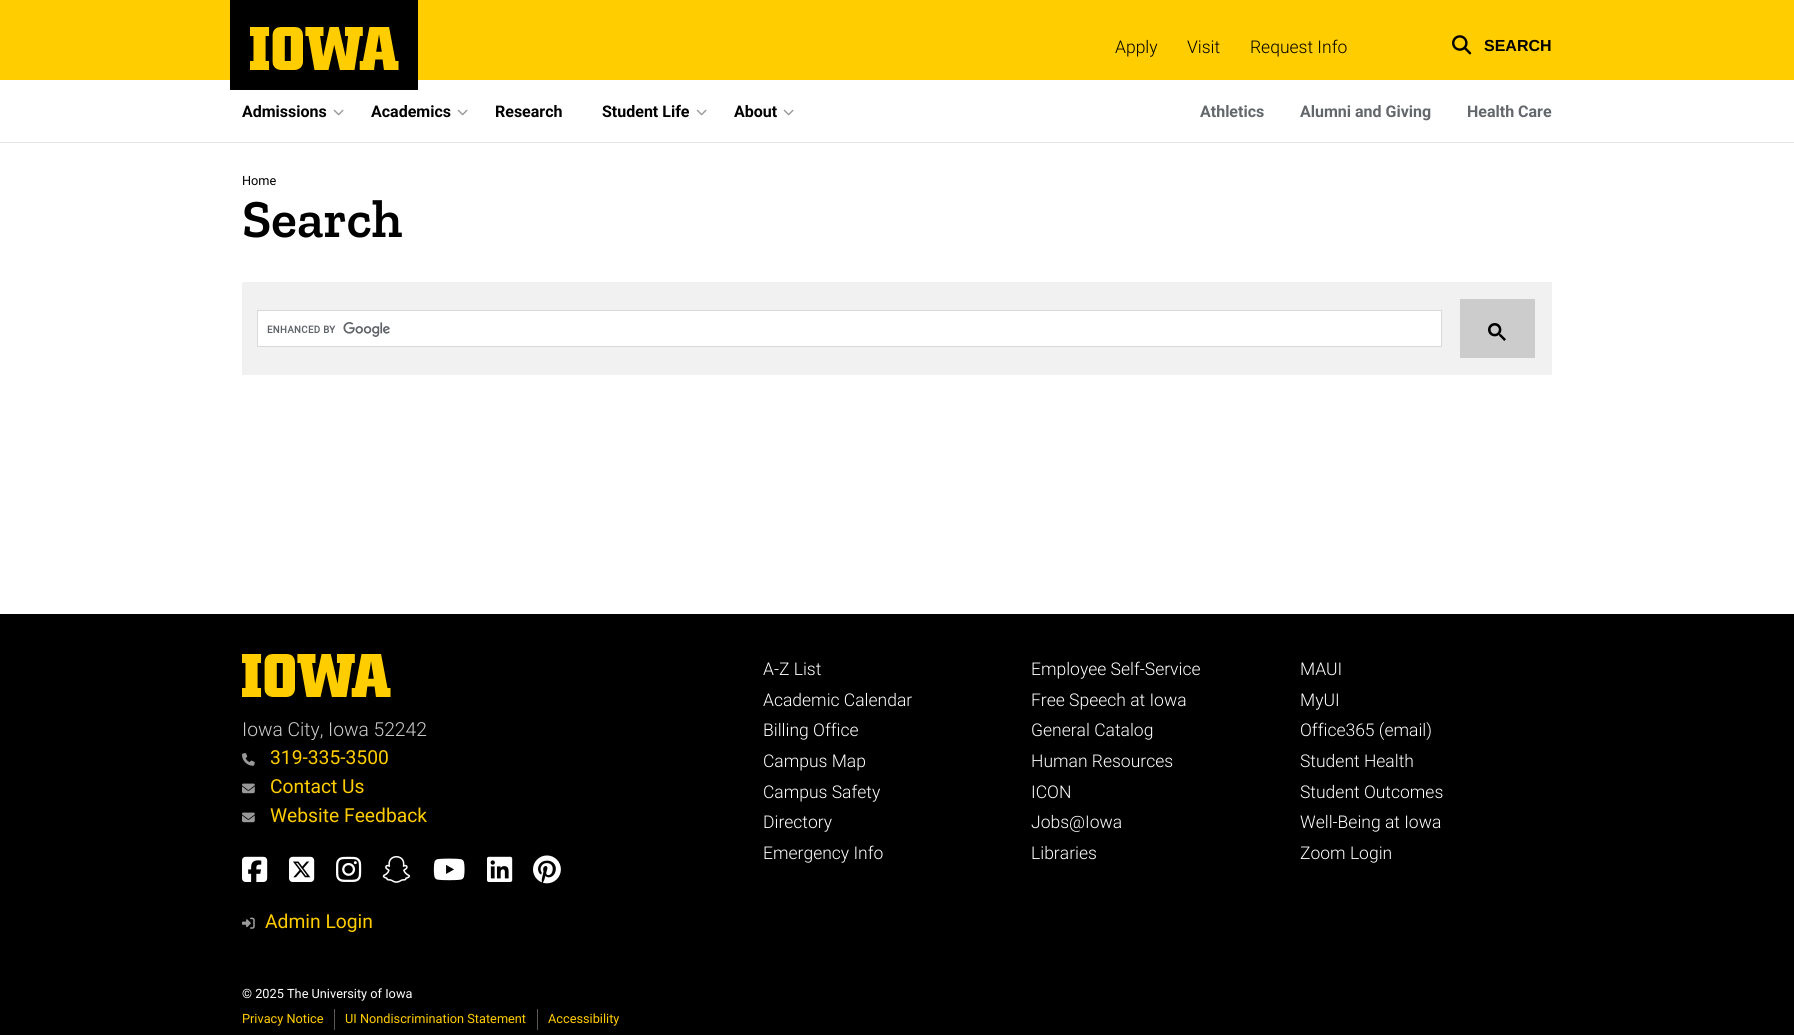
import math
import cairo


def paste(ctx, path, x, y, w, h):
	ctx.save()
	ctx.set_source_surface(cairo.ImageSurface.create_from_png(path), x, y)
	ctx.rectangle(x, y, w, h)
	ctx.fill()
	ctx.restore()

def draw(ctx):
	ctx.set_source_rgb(1, 1, 1)
	ctx.paint()
	ctx.set_source_rgb(1, 0.804, 0)
	ctx.rectangle(0, 0, 1794, 80)
	ctx.fill()
	ctx.set_source_rgb(0, 0, 0)
	ctx.rectangle(230, 0, 188, 90)
	ctx.fill()
	paste(ctx, 'media/1.png', 250, 27, 149, 43)
	ctx.select_font_face('Roboto Light')
	ctx.set_font_size(17.5)
	for x, y, s in [
		(1115, 53, 'Apply'),
		(1187, 53, 'Visit'),
		(1250, 53, 'Request Info'),
	]:
		ctx.move_to(x, y)
		ctx.show_text(s)
	paste(ctx, 'media/2.png', 1452, 35, 20, 20)
	ctx.select_font_face('Liberation Sans', cairo.FONT_SLANT_NORMAL, cairo.FONT_WEIGHT_BOLD)
	ctx.set_font_size(16)
	ctx.move_to(1484, 51)
	ctx.show_text('SEARCH')
	ctx.set_source_rgb(0.902, 0.898, 0.898)
	ctx.rectangle(0, 142, 1794, 1)
	ctx.fill()
	ctx.select_font_face('Roboto', cairo.FONT_SLANT_NORMAL, cairo.FONT_WEIGHT_BOLD)
	ctx.set_source_rgb(0, 0, 0)
	ctx.move_to(242, 117)
	ctx.show_text('Admissions')
	paste(ctx, 'media/3.png', 333, 109, 11, 7)
	ctx.move_to(371, 117)
	ctx.show_text('Academics')
	paste(ctx, 'media/3.png', 457, 109, 11, 7)
	ctx.move_to(495, 117)
	ctx.show_text('Research')
	ctx.move_to(602, 117)
	ctx.show_text('Student Life')
	paste(ctx, 'media/3.png', 696, 109, 11, 7)
	ctx.move_to(734, 117)
	ctx.show_text('About')
	paste(ctx, 'media/3.png', 783, 109, 11, 7)
	ctx.set_source_rgb(0.388, 0.4, 0.416)
	for x, y, s in [
		(1200, 117, 'Athletics'),
		(1300, 117, 'Alumni and Giving'),
		(1467, 117, 'Health Care'),
	]:
		ctx.move_to(x, y)
		ctx.show_text(s)
	ctx.select_font_face('Roboto')
	ctx.set_font_size(12.75)
	ctx.set_source_rgb(0, 0, 0)
	ctx.move_to(242, 185)
	ctx.show_text('Home')
	ctx.select_font_face('Zilla Slab SemiBold')
	ctx.set_font_size(53.5)
	ctx.move_to(242, 237)
	ctx.show_text('Search')
	ctx.set_source_rgb(0.945, 0.945, 0.945)
	ctx.rectangle(242, 282, 1310, 93)
	ctx.fill()
	ctx.set_source_rgb(1, 1, 1)
	ctx.rectangle(257.5, 310.5, 1184, 36)
	ctx.fill_preserve()
	ctx.set_source_rgb(0.851, 0.851, 0.851)
	ctx.set_line_width(1)
	ctx.stroke()
	paste(ctx, 'media/4.png', 267, 322, 123, 15)
	ctx.set_source_rgb(0.8, 0.8, 0.8)
	ctx.rectangle(1460, 299, 75, 59)
	ctx.fill()
	paste(ctx, 'media/5.png', 1488, 323, 18, 18)
	ctx.set_source_rgb(0, 0, 0)
	ctx.rectangle(0, 614, 1794, 421)
	ctx.fill()
	paste(ctx, 'media/1.png', 242, 654, 149, 43)
	ctx.select_font_face('Roboto Light')
	ctx.set_font_size(19.25)
	ctx.set_source_rgb(0.8, 0.8, 0.8)
	ctx.move_to(242, 736)
	ctx.show_text('Iowa City, Iowa 52242')
	paste(ctx, 'media/6.png', 242, 753, 13, 13)
	ctx.select_font_face('Roboto')
	ctx.set_source_rgb(1, 0.804, 0)
	ctx.move_to(270, 764)
	ctx.show_text('319-335-3500')
	paste(ctx, 'media/7.png', 242, 783, 13, 11)
	ctx.move_to(270, 793)
	ctx.show_text('Contact Us')
	paste(ctx, 'media/7.png', 242, 812, 13, 11)
	ctx.move_to(270, 822)
	ctx.show_text('Website Feedback')
	paste(ctx, 'media/8.png', 242, 856, 26, 26)
	paste(ctx, 'media/9.png', 289, 856, 26, 26)
	paste(ctx, 'media/10.png', 336, 856, 26, 26)
	paste(ctx, 'media/11.png', 382, 856, 28, 27)
	paste(ctx, 'media/12.png', 433, 858, 32, 23)
	paste(ctx, 'media/13.png', 487, 856, 26, 26)
	paste(ctx, 'media/14.png', 533, 855, 28, 29)
	paste(ctx, 'media/15.png', 242, 917, 13, 12)
	ctx.move_to(265, 928)
	ctx.show_text('Admin Login')
	ctx.select_font_face('Roboto Light')
	ctx.set_font_size(17.5)
	ctx.set_source_rgb(1, 1, 1)
	for x, y, s in [
		(763, 675, 'A-Z List'),
		(763, 706, 'Academic Calendar'),
		(763, 736, 'Billing Office'),
		(763, 767, 'Campus Map'),
		(763, 798, 'Campus Safety'),
		(763, 828, 'Directory'),
		(763, 859, 'Emergency Info'),
		(1031, 675, 'Employee Self-Service'),
		(1031, 706, 'Free Speech at Iowa'),
		(1031, 736, 'General Catalog'),
		(1031, 767, 'Human Resources'),
		(1031, 798, 'ICON'),
		(1031, 828, 'Jobs@Iowa'),
		(1031, 859, 'Libraries'),
		(1300, 675, 'MAUI'),
		(1300, 706, 'MyUI'),
		(1300, 736, 'Office365 (email)'),
		(1300, 767, 'Student Health'),
		(1300, 798, 'Student Outcomes'),
		(1300, 828, 'Well-Being at Iowa'),
		(1300, 859, 'Zoom Login'),
	]:
		ctx.move_to(x, y)
		ctx.show_text(s)
	ctx.select_font_face('Roboto')
	ctx.set_font_size(12.75)
	ctx.move_to(242, 998)
	ctx.show_text('© 2025 The University of Iowa')
	ctx.set_source_rgb(0.365, 0.337, 0.337)
	ctx.rectangle(334, 1009, 1, 21)
	ctx.fill()
	ctx.set_source_rgb(1, 0.804, 0)
	ctx.move_to(242, 1023)
	ctx.show_text('Privacy Notice')
	ctx.set_source_rgb(0.365, 0.337, 0.337)
	ctx.rectangle(537, 1009, 1, 21)
	ctx.fill()
	ctx.set_source_rgb(1, 0.804, 0)
	ctx.move_to(345, 1023)
	ctx.show_text('UI Nondiscrimination Statement')
	ctx.move_to(548, 1023)
	ctx.show_text('Accessibility')


surface = cairo.ImageSurface(cairo.FORMAT_RGB24, 1794, 1035)
ctx = cairo.Context(surface)
options = cairo.FontOptions()
options.set_hint_metrics(cairo.HINT_METRICS_OFF)
options.set_hint_style(cairo.HINT_STYLE_NONE)
ctx.set_font_options(options)
ctx.set_miter_limit(4)
draw(ctx)
surface.write_to_png('image.png')
